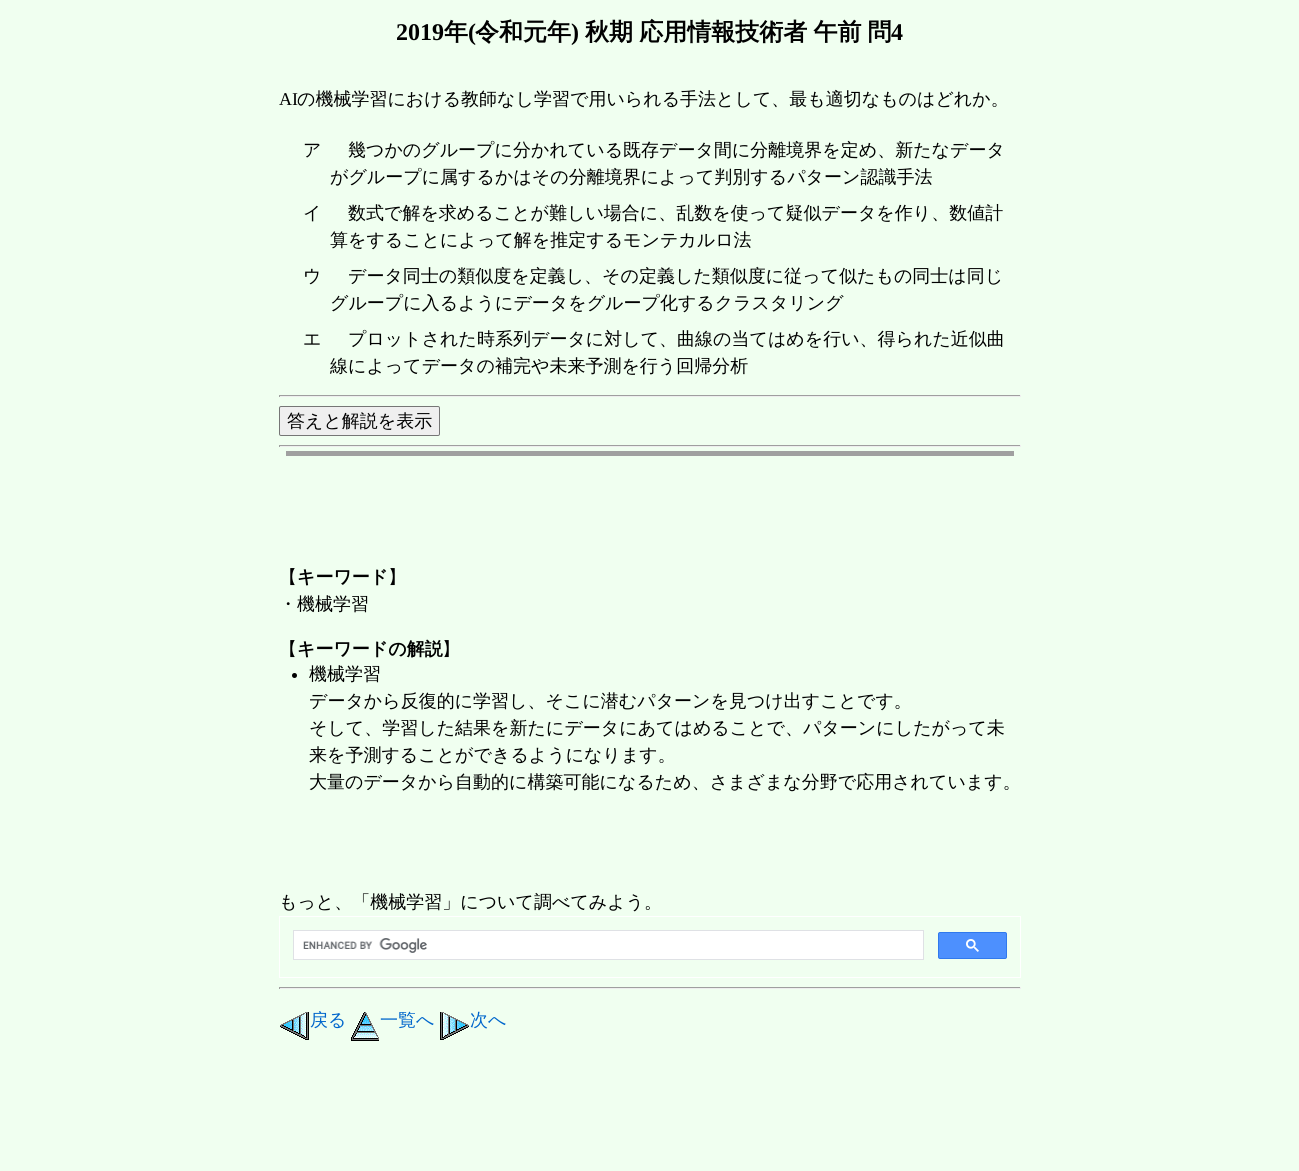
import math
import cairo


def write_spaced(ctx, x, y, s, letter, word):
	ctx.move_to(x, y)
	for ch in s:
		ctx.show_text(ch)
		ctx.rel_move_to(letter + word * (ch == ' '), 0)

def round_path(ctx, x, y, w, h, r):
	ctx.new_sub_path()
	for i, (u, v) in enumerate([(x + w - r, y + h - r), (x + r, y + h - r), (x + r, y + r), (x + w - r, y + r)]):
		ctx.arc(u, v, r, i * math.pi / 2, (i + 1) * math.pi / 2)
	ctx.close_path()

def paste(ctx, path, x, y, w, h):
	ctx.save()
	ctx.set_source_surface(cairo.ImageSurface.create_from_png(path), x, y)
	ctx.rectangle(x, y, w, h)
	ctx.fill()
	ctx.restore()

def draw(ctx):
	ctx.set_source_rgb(0.941, 1, 0.941)
	ctx.paint()
	ctx.select_font_face('Liberation Serif', cairo.FONT_SLANT_NORMAL, cairo.FONT_WEIGHT_BOLD)
	ctx.set_font_size(24)
	ctx.set_source_rgb(0, 0, 0)
	ctx.move_to(396, 40)
	ctx.show_text('2019')
	ctx.select_font_face('WenQuanYi Zen Hei', cairo.FONT_SLANT_NORMAL, cairo.FONT_WEIGHT_BOLD)
	ctx.move_to(444, 40)
	ctx.show_text('年')
	ctx.select_font_face('Liberation Serif', cairo.FONT_SLANT_NORMAL, cairo.FONT_WEIGHT_BOLD)
	ctx.move_to(468, 40)
	ctx.show_text('(')
	ctx.select_font_face('WenQuanYi Zen Hei', cairo.FONT_SLANT_NORMAL, cairo.FONT_WEIGHT_BOLD)
	ctx.move_to(475, 40)
	ctx.show_text('令和元年')
	ctx.select_font_face('Liberation Serif', cairo.FONT_SLANT_NORMAL, cairo.FONT_WEIGHT_BOLD)
	ctx.move_to(571, 40)
	ctx.show_text(')')
	ctx.select_font_face('WenQuanYi Zen Hei', cairo.FONT_SLANT_NORMAL, cairo.FONT_WEIGHT_BOLD)
	write_spaced(ctx, 585, 40, '秋期 応用情報技術者 午前 問', 0, -1)
	ctx.select_font_face('Liberation Serif', cairo.FONT_SLANT_NORMAL, cairo.FONT_WEIGHT_BOLD)
	ctx.move_to(891, 40)
	ctx.show_text('4')
	ctx.select_font_face('Liberation Serif')
	ctx.set_font_size(18)
	ctx.move_to(279, 105)
	ctx.show_text('AI')
	ctx.select_font_face('WenQuanYi Zen Hei Medium')
	for x, y, s in [
		(297, 105, 'の機械学習における教師なし学習で用いられる手法として、最も適切なものはどれか。'),
		(303, 156, 'ア'),
		(348, 156, '幾つかのグループに分かれている既存データ間に分離境界を定め、新たなデータ'),
		(330, 183, 'がグループに属するかはその分離境界によって判別するパターン認識手法'),
		(303, 219, 'イ'),
		(348, 219, '数式で解を求めることが難しい場合に、乱数を使って疑似データを作り、数値計'),
		(330, 246, '算をすることによって解を推定するモンテカルロ法'),
		(303, 282, 'ウ'),
		(348, 282, 'データ同士の類似度を定義し、その定義した類似度に従って似たもの同士は同じ'),
		(330, 309, 'グループに入るようにデータをグループ化するクラスタリング'),
		(303, 345, 'エ'),
		(348, 345, 'プロットされた時系列データに対して、曲線の当てはめを行い、得られた近似曲'),
		(330, 372, '線によってデータの補完や未来予測を行う回帰分析'),
	]:
		ctx.move_to(x, y)
		ctx.show_text(s)
	ctx.set_source_rgb(0.624, 0.624, 0.624)
	ctx.rectangle(279, 395, 742, 1)
	ctx.fill()
	ctx.set_source_rgb(0.933, 0.933, 0.933)
	ctx.rectangle(1020, 395, 1, 2)
	ctx.rectangle(279, 396, 742, 1)
	ctx.fill()
	ctx.set_source_rgb(0.624, 0.624, 0.624)
	ctx.rectangle(279, 395, 1, 2)
	ctx.fill()
	ctx.set_source_rgb(0.937, 0.937, 0.937)
	round_path(ctx, 279.5, 406.5, 160, 29, 1.5)
	ctx.fill_preserve()
	ctx.set_source_rgb(0.463, 0.463, 0.463)
	ctx.set_line_width(1)
	ctx.stroke()
	ctx.set_source_rgb(0, 0, 0)
	ctx.move_to(287, 427)
	ctx.show_text('答えと解説を表示')
	ctx.set_source_rgb(0.624, 0.624, 0.624)
	ctx.rectangle(279, 445, 742, 1)
	ctx.fill()
	ctx.set_source_rgb(0.933, 0.933, 0.933)
	ctx.rectangle(1020, 445, 1, 2)
	ctx.rectangle(279, 446, 742, 1)
	ctx.fill()
	ctx.set_source_rgb(0.624, 0.624, 0.624)
	ctx.rectangle(279, 445, 1, 2)
	ctx.fill()
	ctx.set_source_rgb(0.627, 0.627, 0.627)
	ctx.rectangle(286, 451, 728, 5)
	ctx.fill()
	ctx.set_source_rgb(0, 0, 0)
	ctx.move_to(279, 583)
	ctx.show_text('【')
	ctx.select_font_face('WenQuanYi Zen Hei', cairo.FONT_SLANT_NORMAL, cairo.FONT_WEIGHT_BOLD)
	ctx.move_to(297, 583)
	ctx.show_text('キーワード')
	ctx.select_font_face('WenQuanYi Zen Hei Medium')
	for x, y, s in [
		(388, 583, '】'),
		(279, 610, '・機械学習'),
		(279, 655, '【'),
	]:
		ctx.move_to(x, y)
		ctx.show_text(s)
	ctx.select_font_face('WenQuanYi Zen Hei', cairo.FONT_SLANT_NORMAL, cairo.FONT_WEIGHT_BOLD)
	ctx.move_to(297, 655)
	ctx.show_text('キーワードの解説')
	ctx.select_font_face('WenQuanYi Zen Hei Medium')
	ctx.move_to(442, 655)
	ctx.show_text('】')
	ctx.new_path()
	ctx.arc(294.5, 675.5, 2.5, 0, 2 * math.pi)
	ctx.fill()
	for x, y, s in [
		(309, 680, '機械学習'),
		(309, 707, 'データから反復的に学習し、そこに潜むパターンを見つけ出すことです。'),
		(309, 734, 'そして、学習した結果を新たにデータにあてはめることで、パターンにしたがって未'),
		(309, 761, '来を予測することができるようになります。'),
		(309, 788, '大量のデータから自動的に構築可能になるため、さまざまな分野で応用されています。'),
		(279, 908, 'もっと、「機械学習」について調べてみよう。'),
	]:
		ctx.move_to(x, y)
		ctx.show_text(s)
	ctx.rectangle(279.5, 916.5, 741, 61)
	ctx.set_source_rgb(1, 1, 1)
	ctx.stroke()
	ctx.rectangle(293.5, 930.5, 630, 29)
	ctx.fill_preserve()
	ctx.set_source_rgb(0.875, 0.882, 0.898)
	ctx.stroke()
	paste(ctx, 'media/1.png', 303, 938, 124, 15)
	ctx.set_source_rgb(0.302, 0.565, 0.996)
	round_path(ctx, 938.5, 932.5, 68, 26, 1.5)
	ctx.fill_preserve()
	ctx.set_source_rgb(0.188, 0.475, 0.929)
	ctx.stroke()
	paste(ctx, 'media/2.png', 966, 939, 13, 13)
	ctx.set_source_rgb(0.624, 0.624, 0.624)
	ctx.rectangle(279, 987, 742, 1)
	ctx.fill()
	ctx.set_source_rgb(0.933, 0.933, 0.933)
	ctx.rectangle(1020, 987, 1, 2)
	ctx.rectangle(279, 988, 742, 1)
	ctx.fill()
	ctx.set_source_rgb(0.624, 0.624, 0.624)
	ctx.rectangle(279, 987, 1, 2)
	ctx.fill()
	paste(ctx, 'media/3.png', 280, 1012, 29, 28)
	ctx.set_source_rgb(0, 0.4, 0.8)
	ctx.move_to(310, 1026)
	ctx.show_text('戻る')
	paste(ctx, 'media/4.png', 351, 1012, 28, 29)
	ctx.move_to(380, 1026)
	ctx.show_text('一覧へ')
	paste(ctx, 'media/5.png', 440, 1012, 29, 28)
	ctx.move_to(470, 1026)
	ctx.show_text('次へ')


surface = cairo.ImageSurface(cairo.FORMAT_RGB24, 1299, 1171)
ctx = cairo.Context(surface)
options = cairo.FontOptions()
options.set_hint_metrics(cairo.HINT_METRICS_OFF)
options.set_hint_style(cairo.HINT_STYLE_NONE)
ctx.set_font_options(options)
ctx.set_miter_limit(4)
draw(ctx)
surface.write_to_png('image.png')
